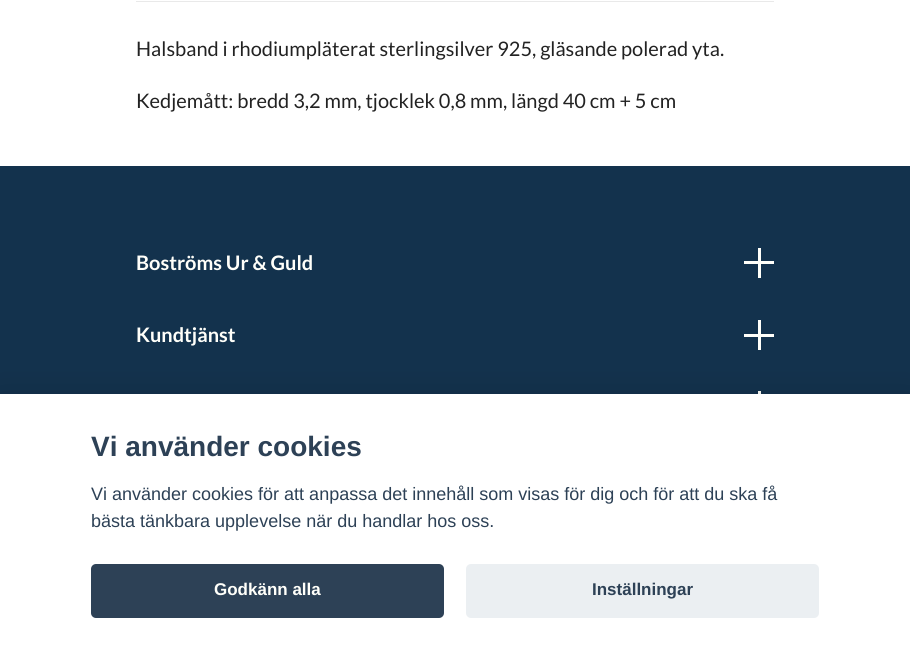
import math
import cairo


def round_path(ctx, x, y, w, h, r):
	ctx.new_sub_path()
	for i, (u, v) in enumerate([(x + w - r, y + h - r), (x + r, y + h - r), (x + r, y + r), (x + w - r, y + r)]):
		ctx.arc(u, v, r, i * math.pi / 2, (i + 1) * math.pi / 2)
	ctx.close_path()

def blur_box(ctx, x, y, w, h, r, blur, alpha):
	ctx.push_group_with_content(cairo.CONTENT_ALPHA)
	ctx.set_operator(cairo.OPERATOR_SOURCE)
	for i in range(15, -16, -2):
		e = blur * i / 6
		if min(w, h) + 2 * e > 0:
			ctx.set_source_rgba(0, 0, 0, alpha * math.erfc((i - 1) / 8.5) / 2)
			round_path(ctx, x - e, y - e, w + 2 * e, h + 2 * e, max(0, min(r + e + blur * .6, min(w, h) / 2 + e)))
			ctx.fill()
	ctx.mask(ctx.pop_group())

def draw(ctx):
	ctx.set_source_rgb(1, 1, 1)
	ctx.paint()
	ctx.set_source_rgb(0.914, 0.914, 0.914)
	ctx.rectangle(136, 1, 638, 1)
	ctx.fill()
	ctx.select_font_face('Lato')
	ctx.set_font_size(20)
	ctx.set_source_rgb(0.133, 0.133, 0.133)
	ctx.move_to(136, 56)
	ctx.show_text('Halsband i rhodiumpläterat sterlingsilver 925, gläsande polerad yta.')
	ctx.move_to(136, 108)
	ctx.show_text('Kedjemått: bredd 3,2 mm, tjocklek 0,8 mm, längd 40 cm + 5 cm')
	ctx.set_source_rgb(0.078, 0.196, 0.302)
	ctx.rectangle(0, 166, 910, 228)
	ctx.fill()
	ctx.select_font_face('Lato', cairo.FONT_SLANT_NORMAL, cairo.FONT_WEIGHT_BOLD)
	ctx.set_source_rgb(1, 1, 0.98)
	ctx.move_to(136, 270)
	ctx.show_text('Boströms Ur & Guld')
	ctx.rectangle(758, 248, 3, 30)
	ctx.fill()
	ctx.rectangle(744, 261, 30, 3)
	ctx.fill()
	ctx.move_to(136, 342)
	ctx.show_text('Kundtjänst')
	ctx.rectangle(758, 320, 3, 30)
	ctx.rectangle(744, 334, 30, 3)
	ctx.rectangle(758, 391, 3, 3)
	ctx.fill()
	ctx.set_source_rgb(0.008, 0.008, 0.012)
	blur_box(ctx, 0, 406, 910, 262, 0, 19, 0.28)
	ctx.set_source_rgb(1, 1, 1)
	ctx.rectangle(0, 394, 910, 260)
	ctx.fill()
	ctx.select_font_face('Liberation Sans', cairo.FONT_SLANT_NORMAL, cairo.FONT_WEIGHT_BOLD)
	ctx.set_font_size(28)
	ctx.set_source_rgb(0.176, 0.255, 0.337)
	ctx.move_to(91, 456)
	ctx.show_text('Vi använder cookies')
	ctx.select_font_face('Liberation Sans')
	ctx.set_font_size(18)
	ctx.move_to(91, 500)
	ctx.show_text('Vi använder cookies för att anpassa det innehåll som visas för dig och för att du ska få')
	ctx.move_to(91, 527)
	ctx.show_text('bästa tänkbara upplevelse när du handlar hos oss.')
	round_path(ctx, 91, 564, 353, 54, 5)
	ctx.fill()
	ctx.select_font_face('Liberation Sans', cairo.FONT_SLANT_NORMAL, cairo.FONT_WEIGHT_BOLD)
	ctx.set_font_size(17)
	ctx.set_source_rgb(1, 1, 0.98)
	ctx.move_to(214, 595)
	ctx.show_text('Godkänn alla')
	ctx.set_source_rgb(0.918, 0.937, 0.949)
	round_path(ctx, 466, 564, 353, 54, 5)
	ctx.fill()
	ctx.set_source_rgb(0.176, 0.255, 0.337)
	ctx.move_to(592, 595)
	ctx.show_text('Inställningar')


surface = cairo.ImageSurface(cairo.FORMAT_RGB24, 910, 654)
ctx = cairo.Context(surface)
options = cairo.FontOptions()
options.set_hint_metrics(cairo.HINT_METRICS_OFF)
options.set_hint_style(cairo.HINT_STYLE_NONE)
ctx.set_font_options(options)
ctx.set_miter_limit(4)
draw(ctx)
surface.write_to_png('image.png')
